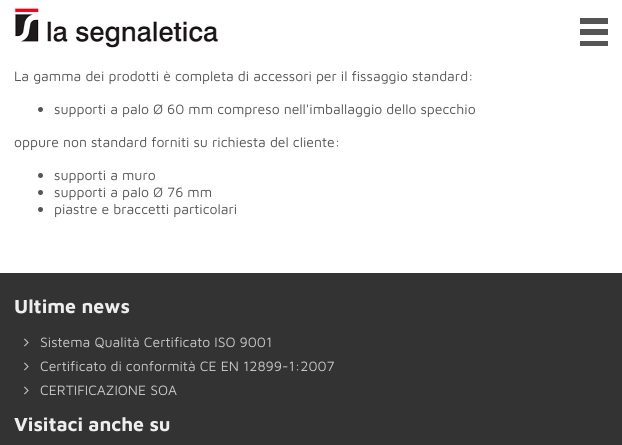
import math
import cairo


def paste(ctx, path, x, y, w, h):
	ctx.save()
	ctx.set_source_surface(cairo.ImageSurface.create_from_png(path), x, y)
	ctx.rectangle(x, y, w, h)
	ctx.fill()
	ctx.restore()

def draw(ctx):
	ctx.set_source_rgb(1, 1, 1)
	ctx.paint()
	paste(ctx, 'media/1.png', 14, 8, 204, 40)
	ctx.set_source_rgb(0.333, 0.333, 0.333)
	ctx.rectangle(580, 18, 28, 6)
	ctx.rectangle(580, 29, 28, 6)
	ctx.rectangle(580, 41, 28, 5)
	ctx.fill()
	ctx.select_font_face('Maven Pro')
	ctx.set_font_size(14)
	ctx.move_to(14, 81)
	ctx.show_text('La gamma dei prodotti è completa di accessori per il fissaggio standard:')
	ctx.new_path()
	ctx.arc(40.5, 109.5, 2.5, 0, 2 * math.pi)
	ctx.fill()
	ctx.move_to(54, 114)
	ctx.show_text('supporti a palo Ø 60 mm compreso nell\'imballaggio dello specchio')
	ctx.move_to(14, 147)
	ctx.show_text('oppure non standard forniti su richiesta del cliente:')
	ctx.new_path()
	ctx.arc(40.5, 175.5, 2.5, 0, 2 * math.pi)
	ctx.fill()
	ctx.move_to(54, 180)
	ctx.show_text('supporti a muro')
	ctx.new_path()
	ctx.arc(40.5, 192.5, 2.5, 0, 2 * math.pi)
	ctx.fill()
	ctx.move_to(54, 197)
	ctx.show_text('supporti a palo Ø 76 mm')
	ctx.new_path()
	ctx.arc(40.5, 209.5, 2.5, 0, 2 * math.pi)
	ctx.fill()
	ctx.move_to(54, 214)
	ctx.show_text('piastre e braccetti particolari')
	ctx.set_source_rgb(0.2, 0.2, 0.2)
	ctx.rectangle(0, 273, 622, 172)
	ctx.fill()
	ctx.select_font_face('Maven Pro', cairo.FONT_SLANT_NORMAL, cairo.FONT_WEIGHT_BOLD)
	ctx.set_font_size(19.5)
	ctx.set_source_rgb(0.933, 0.933, 0.933)
	ctx.move_to(14, 313)
	ctx.show_text('Ultime news')
	paste(ctx, 'media/2.png', 24, 338, 5, 9)
	ctx.select_font_face('Maven Pro')
	ctx.set_font_size(14)
	ctx.set_source_rgb(0.788, 0.788, 0.788)
	ctx.move_to(40, 347)
	ctx.show_text('Sistema Qualità Certificato ISO 9001')
	paste(ctx, 'media/2.png', 24, 362, 5, 9)
	ctx.move_to(40, 371)
	ctx.show_text('Certificato di conformità CE EN 12899-1:2007')
	paste(ctx, 'media/2.png', 24, 386, 5, 9)
	ctx.move_to(40, 395)
	ctx.show_text('CERTIFICAZIONE SOA')
	ctx.select_font_face('Maven Pro', cairo.FONT_SLANT_NORMAL, cairo.FONT_WEIGHT_BOLD)
	ctx.set_font_size(19.5)
	ctx.set_source_rgb(0.933, 0.933, 0.933)
	ctx.move_to(14, 431)
	ctx.show_text('Visitaci anche su')


surface = cairo.ImageSurface(cairo.FORMAT_RGB24, 622, 445)
ctx = cairo.Context(surface)
options = cairo.FontOptions()
options.set_hint_metrics(cairo.HINT_METRICS_OFF)
options.set_hint_style(cairo.HINT_STYLE_NONE)
ctx.set_font_options(options)
ctx.set_miter_limit(4)
draw(ctx)
surface.write_to_png('image.png')
